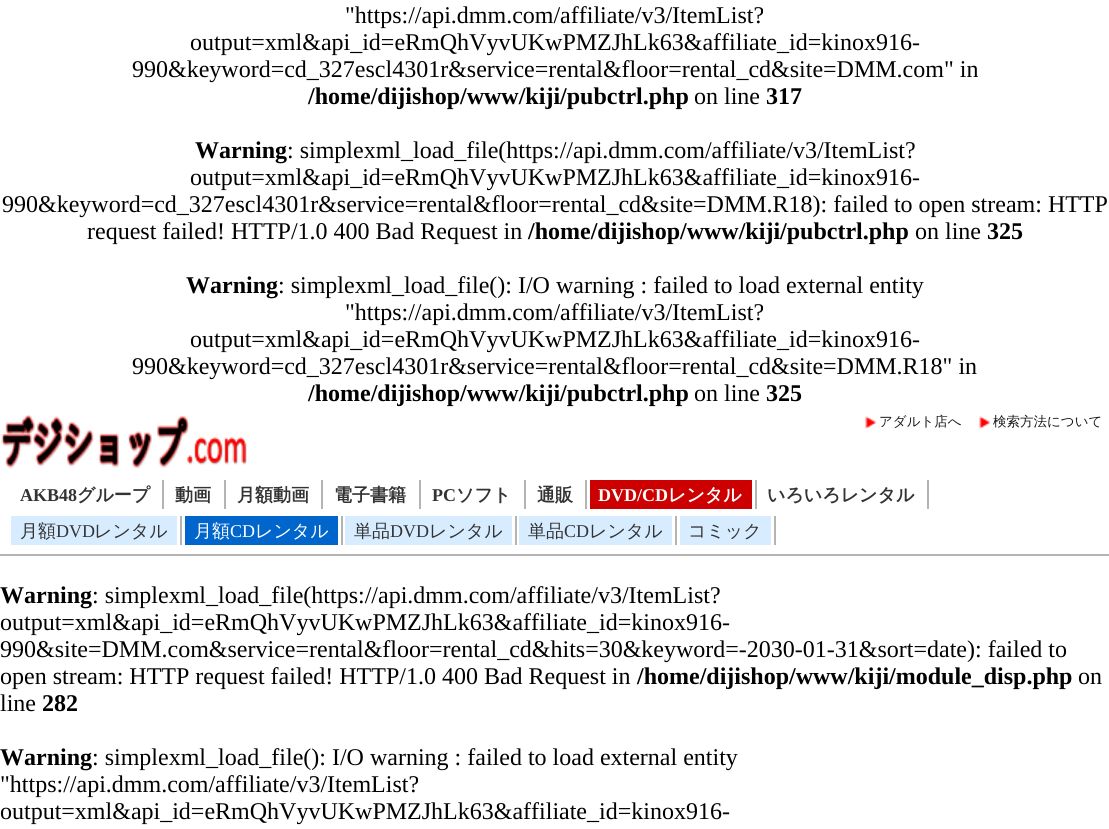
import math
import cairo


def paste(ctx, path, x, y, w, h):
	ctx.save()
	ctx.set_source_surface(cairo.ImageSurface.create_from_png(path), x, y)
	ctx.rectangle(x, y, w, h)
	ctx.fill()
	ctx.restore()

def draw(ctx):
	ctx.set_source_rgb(1, 1, 1)
	ctx.paint()
	ctx.select_font_face('Liberation Serif')
	ctx.set_font_size(24)
	ctx.set_source_rgb(0, 0, 0)
	for x, y, s in [
		(345, 23, '"https://api.dmm.com/affiliate/v3/ItemList?'),
		(190, 50, 'output=xml&api_id=eRmQhVyvUKwPMZJhLk63&affiliate_id=kinox916-'),
		(132, 77, '990&keyword=cd_327escl4301r&service=rental&floor=rental_cd&site=DMM.com" in'),
	]:
		ctx.move_to(x, y)
		ctx.show_text(s)
	ctx.select_font_face('Liberation Serif', cairo.FONT_SLANT_NORMAL, cairo.FONT_WEIGHT_BOLD)
	ctx.move_to(308, 104)
	ctx.show_text('/home/dijishop/www/kiji/pubctrl.php')
	ctx.select_font_face('Liberation Serif')
	ctx.move_to(694, 104)
	ctx.show_text('on line')
	ctx.select_font_face('Liberation Serif', cairo.FONT_SLANT_NORMAL, cairo.FONT_WEIGHT_BOLD)
	ctx.move_to(766, 104)
	ctx.show_text('317')
	ctx.move_to(195, 158)
	ctx.show_text('Warning')
	ctx.select_font_face('Liberation Serif')
	for x, y, s in [
		(287, 158, ': simplexml_load_file(https://api.dmm.com/affiliate/v3/ItemList?'),
		(190, 185, 'output=xml&api_id=eRmQhVyvUKwPMZJhLk63&affiliate_id=kinox916-'),
		(2, 212, '990&keyword=cd_327escl4301r&service=rental&floor=rental_cd&site=DMM.R18): failed to open stream: HTTP'),
		(87, 239, 'request failed! HTTP/1.0 400 Bad Request in'),
	]:
		ctx.move_to(x, y)
		ctx.show_text(s)
	ctx.select_font_face('Liberation Serif', cairo.FONT_SLANT_NORMAL, cairo.FONT_WEIGHT_BOLD)
	ctx.move_to(528, 239)
	ctx.show_text('/home/dijishop/www/kiji/pubctrl.php')
	ctx.select_font_face('Liberation Serif')
	ctx.move_to(915, 239)
	ctx.show_text('on line')
	ctx.select_font_face('Liberation Serif', cairo.FONT_SLANT_NORMAL, cairo.FONT_WEIGHT_BOLD)
	ctx.move_to(987, 239)
	ctx.show_text('325')
	ctx.move_to(186, 293)
	ctx.show_text('Warning')
	ctx.select_font_face('Liberation Serif')
	for x, y, s in [
		(278, 293, ': simplexml_load_file(): I/O warning : failed to load external entity'),
		(345, 320, '"https://api.dmm.com/affiliate/v3/ItemList?'),
		(190, 347, 'output=xml&api_id=eRmQhVyvUKwPMZJhLk63&affiliate_id=kinox916-'),
		(132, 374, '990&keyword=cd_327escl4301r&service=rental&floor=rental_cd&site=DMM.R18" in'),
	]:
		ctx.move_to(x, y)
		ctx.show_text(s)
	ctx.select_font_face('Liberation Serif', cairo.FONT_SLANT_NORMAL, cairo.FONT_WEIGHT_BOLD)
	ctx.move_to(308, 401)
	ctx.show_text('/home/dijishop/www/kiji/pubctrl.php')
	ctx.select_font_face('Liberation Serif')
	ctx.move_to(694, 401)
	ctx.show_text('on line')
	ctx.select_font_face('Liberation Serif', cairo.FONT_SLANT_NORMAL, cairo.FONT_WEIGHT_BOLD)
	ctx.move_to(766, 401)
	ctx.show_text('325')
	ctx.set_source_rgb(0.706, 0.706, 0.706)
	ctx.rectangle(0, 554, 1109, 2)
	ctx.fill()
	paste(ctx, 'media/1.png', 1, 414, 247, 55)
	paste(ctx, 'media/2.png', 865, 416, 12, 13)
	ctx.select_font_face('WenQuanYi Zen Hei Medium')
	ctx.set_font_size(13.5)
	ctx.set_source_rgb(0.106, 0.106, 0.106)
	ctx.move_to(879, 426)
	ctx.show_text('アダルト店へ')
	paste(ctx, 'media/3.png', 979, 416, 12, 13)
	ctx.move_to(993, 426)
	ctx.show_text('検索方法について')
	ctx.set_source_rgb(0.706, 0.706, 0.706)
	ctx.rectangle(162, 480, 2, 29)
	ctx.fill()
	ctx.select_font_face('Liberation Serif', cairo.FONT_SLANT_NORMAL, cairo.FONT_WEIGHT_BOLD)
	ctx.set_font_size(18)
	ctx.set_source_rgb(0.2, 0.2, 0.2)
	ctx.move_to(20, 501)
	ctx.show_text('AKB48')
	ctx.select_font_face('WenQuanYi Zen Hei', cairo.FONT_SLANT_NORMAL, cairo.FONT_WEIGHT_BOLD)
	ctx.move_to(77, 501)
	ctx.show_text('グループ')
	ctx.set_source_rgb(0.706, 0.706, 0.706)
	ctx.rectangle(224, 480, 2, 29)
	ctx.fill()
	ctx.set_source_rgb(0.2, 0.2, 0.2)
	ctx.move_to(175, 501)
	ctx.show_text('動画')
	ctx.set_source_rgb(0.706, 0.706, 0.706)
	ctx.rectangle(321, 480, 2, 29)
	ctx.fill()
	ctx.set_source_rgb(0.2, 0.2, 0.2)
	ctx.move_to(237, 501)
	ctx.show_text('月額動画')
	ctx.set_source_rgb(0.706, 0.706, 0.706)
	ctx.rectangle(419, 480, 2, 29)
	ctx.fill()
	ctx.set_source_rgb(0.2, 0.2, 0.2)
	ctx.move_to(334, 501)
	ctx.show_text('電子書籍')
	ctx.set_source_rgb(0.706, 0.706, 0.706)
	ctx.rectangle(524, 480, 2, 29)
	ctx.fill()
	ctx.select_font_face('Liberation Serif', cairo.FONT_SLANT_NORMAL, cairo.FONT_WEIGHT_BOLD)
	ctx.set_source_rgb(0.2, 0.2, 0.2)
	ctx.move_to(432, 501)
	ctx.show_text('PC')
	ctx.select_font_face('WenQuanYi Zen Hei', cairo.FONT_SLANT_NORMAL, cairo.FONT_WEIGHT_BOLD)
	ctx.move_to(456, 501)
	ctx.show_text('ソフト')
	ctx.set_source_rgb(0.706, 0.706, 0.706)
	ctx.rectangle(585, 480, 2, 29)
	ctx.fill()
	ctx.set_source_rgb(0.2, 0.2, 0.2)
	ctx.move_to(537, 501)
	ctx.show_text('通販')
	ctx.set_source_rgb(0.706, 0.706, 0.706)
	ctx.rectangle(755, 480, 2, 29)
	ctx.fill()
	ctx.set_source_rgb(0.8, 0, 0)
	ctx.rectangle(590, 480, 162, 29)
	ctx.fill()
	ctx.select_font_face('Liberation Serif', cairo.FONT_SLANT_NORMAL, cairo.FONT_WEIGHT_BOLD)
	ctx.set_source_rgb(1, 1, 1)
	ctx.move_to(598, 501)
	ctx.show_text('DVD/CD')
	ctx.select_font_face('WenQuanYi Zen Hei', cairo.FONT_SLANT_NORMAL, cairo.FONT_WEIGHT_BOLD)
	ctx.move_to(668, 501)
	ctx.show_text('レンタル')
	ctx.set_source_rgb(0.706, 0.706, 0.706)
	ctx.rectangle(927, 480, 2, 29)
	ctx.fill()
	ctx.set_source_rgb(0.2, 0.2, 0.2)
	ctx.move_to(767, 501)
	ctx.show_text('いろいろレンタル')
	ctx.set_source_rgb(0.706, 0.706, 0.706)
	ctx.rectangle(180, 516, 2, 29)
	ctx.fill()
	ctx.set_source_rgb(0.843, 0.929, 1)
	ctx.rectangle(11, 516, 166, 29)
	ctx.fill()
	ctx.select_font_face('WenQuanYi Zen Hei Medium')
	ctx.set_source_rgb(0.2, 0.2, 0.2)
	ctx.move_to(20, 537)
	ctx.show_text('月額')
	ctx.select_font_face('Liberation Serif')
	ctx.move_to(56, 537)
	ctx.show_text('DVD')
	ctx.select_font_face('WenQuanYi Zen Hei Medium')
	ctx.move_to(94, 537)
	ctx.show_text('レンタル')
	ctx.set_source_rgb(0.706, 0.706, 0.706)
	ctx.rectangle(341, 516, 2, 29)
	ctx.fill()
	ctx.set_source_rgb(0, 0.4, 0.8)
	ctx.rectangle(185, 516, 153, 29)
	ctx.fill()
	ctx.set_source_rgb(1, 1, 1)
	ctx.move_to(194, 537)
	ctx.show_text('月額')
	ctx.select_font_face('Liberation Serif')
	ctx.move_to(230, 537)
	ctx.show_text('CD')
	ctx.select_font_face('WenQuanYi Zen Hei Medium')
	ctx.move_to(255, 537)
	ctx.show_text('レンタル')
	ctx.set_source_rgb(0.706, 0.706, 0.706)
	ctx.rectangle(515, 516, 2, 29)
	ctx.fill()
	ctx.set_source_rgb(0.843, 0.929, 1)
	ctx.rectangle(345, 516, 167, 29)
	ctx.fill()
	ctx.set_source_rgb(0.2, 0.2, 0.2)
	ctx.move_to(354, 537)
	ctx.show_text('単品')
	ctx.select_font_face('Liberation Serif')
	ctx.move_to(390, 537)
	ctx.show_text('DVD')
	ctx.select_font_face('WenQuanYi Zen Hei Medium')
	ctx.move_to(429, 537)
	ctx.show_text('レンタル')
	ctx.set_source_rgb(0.706, 0.706, 0.706)
	ctx.rectangle(675, 516, 2, 29)
	ctx.fill()
	ctx.set_source_rgb(0.843, 0.929, 1)
	ctx.rectangle(519, 516, 153, 29)
	ctx.fill()
	ctx.set_source_rgb(0.2, 0.2, 0.2)
	ctx.move_to(528, 537)
	ctx.show_text('単品')
	ctx.select_font_face('Liberation Serif')
	ctx.move_to(564, 537)
	ctx.show_text('CD')
	ctx.select_font_face('WenQuanYi Zen Hei Medium')
	ctx.move_to(589, 537)
	ctx.show_text('レンタル')
	ctx.set_source_rgb(0.706, 0.706, 0.706)
	ctx.rectangle(774, 516, 2, 29)
	ctx.fill()
	ctx.set_source_rgb(0.843, 0.929, 1)
	ctx.rectangle(680, 516, 91, 29)
	ctx.fill()
	ctx.set_source_rgb(0.2, 0.2, 0.2)
	ctx.move_to(688, 537)
	ctx.show_text('コミック')
	ctx.select_font_face('Liberation Serif', cairo.FONT_SLANT_NORMAL, cairo.FONT_WEIGHT_BOLD)
	ctx.set_font_size(24)
	ctx.set_source_rgb(0, 0, 0)
	ctx.move_to(0, 603)
	ctx.show_text('Warning')
	ctx.select_font_face('Liberation Serif')
	for x, y, s in [
		(92, 603, ': simplexml_load_file(https://api.dmm.com/affiliate/v3/ItemList?'),
		(0, 630, 'output=xml&api_id=eRmQhVyvUKwPMZJhLk63&affiliate_id=kinox916-'),
		(0, 657, '990&site=DMM.com&service=rental&floor=rental_cd&hits=30&keyword=-2030-01-31&sort=date): failed to'),
		(0, 684, 'open stream: HTTP request failed! HTTP/1.0 400 Bad Request in'),
	]:
		ctx.move_to(x, y)
		ctx.show_text(s)
	ctx.select_font_face('Liberation Serif', cairo.FONT_SLANT_NORMAL, cairo.FONT_WEIGHT_BOLD)
	ctx.move_to(637, 684)
	ctx.show_text('/home/dijishop/www/kiji/module_disp.php')
	ctx.select_font_face('Liberation Serif')
	ctx.move_to(1078, 684)
	ctx.show_text('on')
	ctx.move_to(0, 711)
	ctx.show_text('line')
	ctx.select_font_face('Liberation Serif', cairo.FONT_SLANT_NORMAL, cairo.FONT_WEIGHT_BOLD)
	ctx.move_to(42, 711)
	ctx.show_text('282')
	ctx.move_to(0, 765)
	ctx.show_text('Warning')
	ctx.select_font_face('Liberation Serif')
	for x, y, s in [
		(92, 765, ': simplexml_load_file(): I/O warning : failed to load external entity'),
		(0, 792, '"https://api.dmm.com/affiliate/v3/ItemList?'),
		(0, 819, 'output=xml&api_id=eRmQhVyvUKwPMZJhLk63&affiliate_id=kinox916-'),
	]:
		ctx.move_to(x, y)
		ctx.show_text(s)


surface = cairo.ImageSurface(cairo.FORMAT_RGB24, 1109, 829)
ctx = cairo.Context(surface)
options = cairo.FontOptions()
options.set_hint_metrics(cairo.HINT_METRICS_OFF)
options.set_hint_style(cairo.HINT_STYLE_NONE)
ctx.set_font_options(options)
ctx.set_miter_limit(4)
draw(ctx)
surface.write_to_png('image.png')
